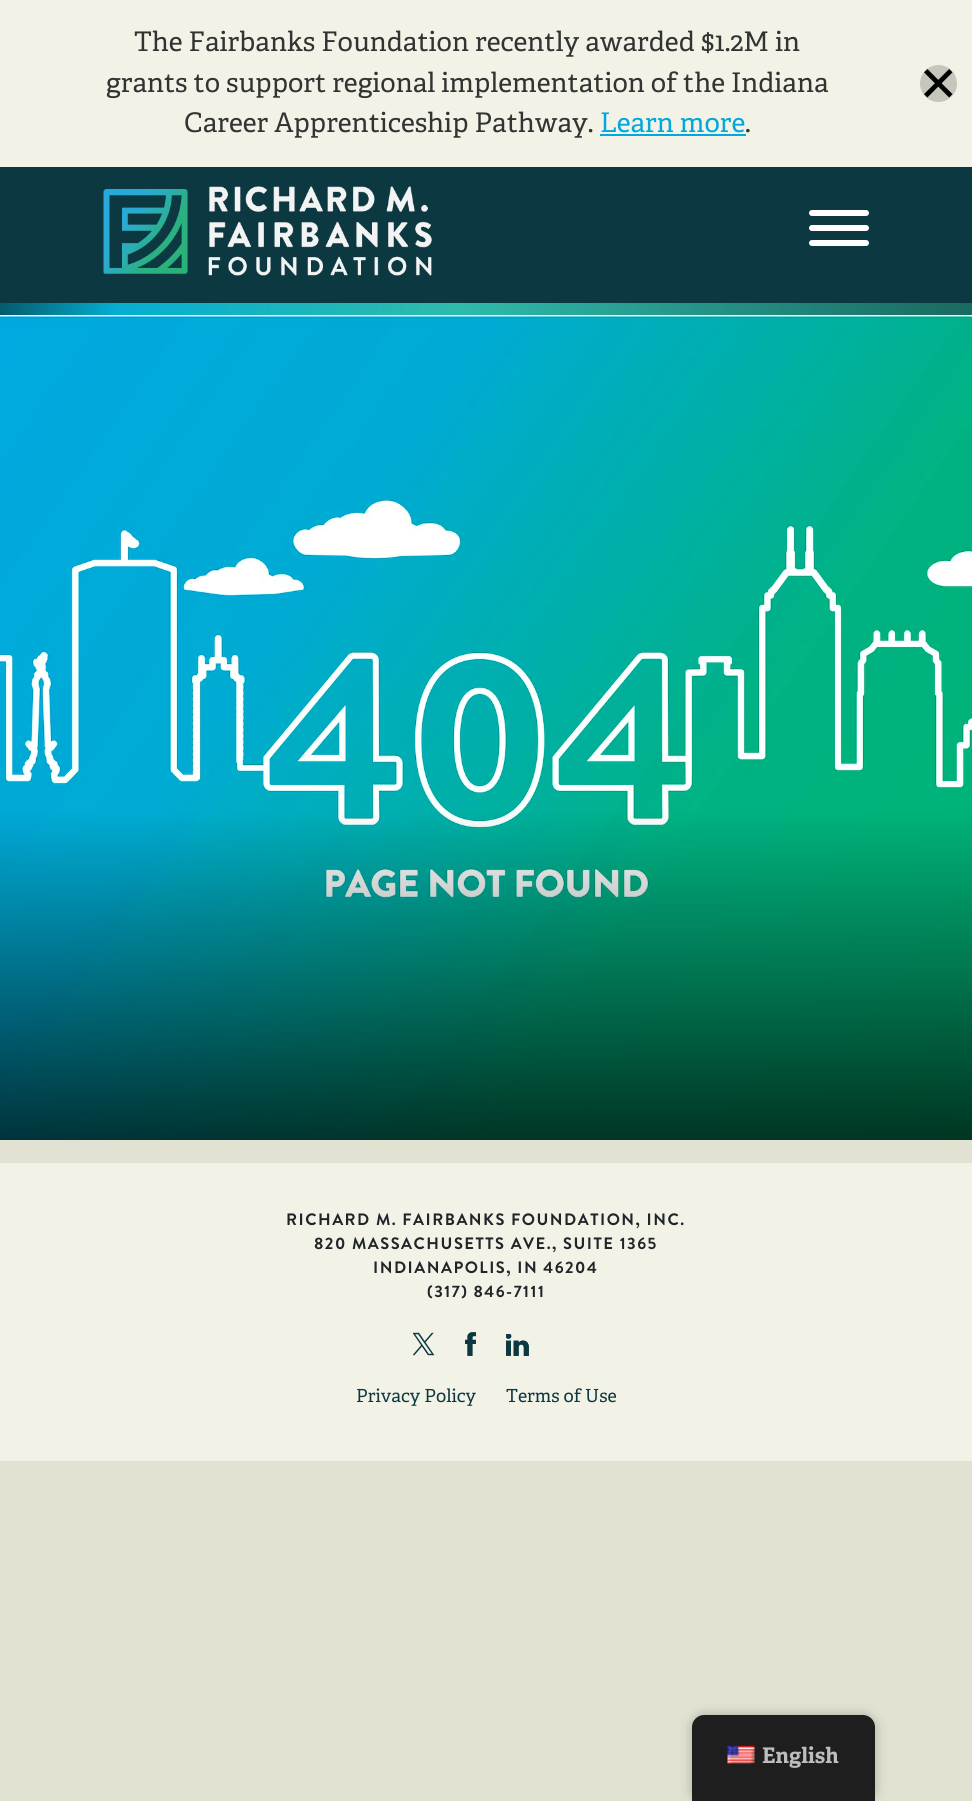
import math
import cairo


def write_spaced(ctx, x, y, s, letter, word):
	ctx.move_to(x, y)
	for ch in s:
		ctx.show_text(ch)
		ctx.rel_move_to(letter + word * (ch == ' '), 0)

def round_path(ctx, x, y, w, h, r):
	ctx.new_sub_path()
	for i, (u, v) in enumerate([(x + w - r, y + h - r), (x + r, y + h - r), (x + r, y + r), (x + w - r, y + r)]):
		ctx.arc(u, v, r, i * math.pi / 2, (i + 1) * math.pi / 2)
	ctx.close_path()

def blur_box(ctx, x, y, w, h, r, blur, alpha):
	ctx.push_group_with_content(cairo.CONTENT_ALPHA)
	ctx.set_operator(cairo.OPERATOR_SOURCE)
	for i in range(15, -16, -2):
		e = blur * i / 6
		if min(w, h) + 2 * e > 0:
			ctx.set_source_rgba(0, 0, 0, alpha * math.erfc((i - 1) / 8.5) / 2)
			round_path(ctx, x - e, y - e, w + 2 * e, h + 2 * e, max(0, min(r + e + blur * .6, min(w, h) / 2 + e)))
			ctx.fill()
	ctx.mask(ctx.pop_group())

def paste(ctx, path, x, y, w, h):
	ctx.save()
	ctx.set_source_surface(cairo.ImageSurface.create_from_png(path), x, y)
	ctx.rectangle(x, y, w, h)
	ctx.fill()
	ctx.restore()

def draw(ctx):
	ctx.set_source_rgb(0.886, 0.886, 0.827)
	ctx.paint()
	ctx.set_source_rgb(0.949, 0.949, 0.902)
	ctx.rectangle(0, 0, 972, 167)
	ctx.fill()
	ctx.select_font_face('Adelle')
	ctx.set_font_size(27)
	ctx.set_source_rgb(0.2, 0.2, 0.2)
	for x, y, s in [
		(134, 51, 'The Fairbanks Foundation recently awarded $1.2M in'),
		(106, 92, 'grants to support regional implementation of the Indiana'),
		(184, 132, 'Career Apprenticeship Pathway.'),
	]:
		ctx.move_to(x, y)
		ctx.show_text(s)
	ctx.set_source_rgb(0, 0.659, 0.863)
	ctx.move_to(600, 132)
	ctx.show_text('Learn more')
	ctx.rectangle(600, 134, 146, 2)
	ctx.fill()
	ctx.set_source_rgb(0.2, 0.2, 0.2)
	ctx.move_to(745, 132)
	ctx.show_text('.')
	ctx.set_source_rgb(0.776, 0.776, 0.741)
	ctx.new_path()
	ctx.arc(938.5, 83.5, 18.5, 0, 2 * math.pi)
	ctx.fill()
	paste(ctx, 'media/1.png', 924, 69, 29, 29)
	ctx.set_source_rgb(0.047, 0.22, 0.259)
	ctx.rectangle(0, 167, 972, 136)
	ctx.fill()
	paste(ctx, 'media/2.png', 103, 186, 329, 90)
	ctx.set_source_rgb(1, 1, 1)
	round_path(ctx, 809, 225, 60, 6, 3)
	ctx.fill()
	round_path(ctx, 809, 210, 60, 6, 3)
	ctx.fill()
	round_path(ctx, 809, 240, 60, 6, 3)
	ctx.fill()
	gradient = cairo.LinearGradient(0, 309, 972, 309)
	gradient.add_color_stop_rgba(0, 0.012, 0.357, 0.427, 1)
	gradient.add_color_stop_rgba(0.12, 0.02, 0.682, 0.82, 1)
	gradient.add_color_stop_rgba(0.47, 0.18, 0.733, 0.671, 1)
	gradient.add_color_stop_rgba(1, 0.102, 0.412, 0.376, 1)
	ctx.set_source(gradient)
	ctx.rectangle(0, 303, 972, 12)
	ctx.fill()
	paste(ctx, 'media/3.png', 0, 315, 972, 825)
	ctx.set_source_rgb(0.949, 0.949, 0.906)
	ctx.rectangle(0, 1163, 972, 298)
	ctx.fill()
	ctx.select_font_face('Brandon Grotesque', cairo.FONT_SLANT_NORMAL, cairo.FONT_WEIGHT_BOLD)
	ctx.set_font_size(16.5)
	ctx.set_source_rgb(0.129, 0.145, 0.161)
	for x, y, s in [
		(286, 1225, 'RICHARD M. FAIRBANKS FOUNDATION, INC.'),
		(314, 1249, '820 MASSACHUSETTS AVE., SUITE 1365'),
		(373, 1273, 'INDIANAPOLIS, IN 46204'),
		(427, 1297, '(317) 846-7111'),
	]:
		write_spaced(ctx, x, y, s, 1.5, 0)
	paste(ctx, 'media/4.png', 413, 1332, 22, 24)
	paste(ctx, 'media/5.png', 465, 1332, 11, 24)
	paste(ctx, 'media/6.png', 506, 1334, 23, 22)
	ctx.select_font_face('Adelle')
	ctx.set_font_size(18)
	ctx.set_source_rgb(0.047, 0.22, 0.259)
	ctx.move_to(356, 1402)
	ctx.show_text('Privacy Policy')
	ctx.move_to(506, 1402)
	ctx.show_text('Terms of Use')
	ctx.set_source_rgb(0, 0, 0)
	blur_box(ctx, 692, 1715, 183, 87, 12, 6, 0.25)
	ctx.set_source_rgb(0.118, 0.118, 0.118)
	ctx.new_path()
	ctx.move_to(704, 1715)
	ctx.line_to(863, 1715)
	ctx.curve_to(869.5, 1715, 875, 1720.5, 875, 1727)
	ctx.line_to(875, 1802)
	ctx.line_to(692, 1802)
	ctx.line_to(692, 1727)
	ctx.curve_to(692, 1720.5, 697.5, 1715, 704, 1715)
	ctx.close_path()
	ctx.fill()
	paste(ctx, 'media/7.png', 727, 1745, 28, 19)
	ctx.select_font_face('Adelle', cairo.FONT_SLANT_NORMAL, cairo.FONT_WEIGHT_BOLD)
	ctx.set_font_size(21.5)
	ctx.set_source_rgb(0.741, 0.741, 0.741)
	ctx.move_to(762, 1763)
	ctx.show_text('English')


surface = cairo.ImageSurface(cairo.FORMAT_RGB24, 972, 1801)
ctx = cairo.Context(surface)
options = cairo.FontOptions()
options.set_hint_metrics(cairo.HINT_METRICS_OFF)
options.set_hint_style(cairo.HINT_STYLE_NONE)
ctx.set_font_options(options)
ctx.set_miter_limit(4)
draw(ctx)
surface.write_to_png('image.png')
